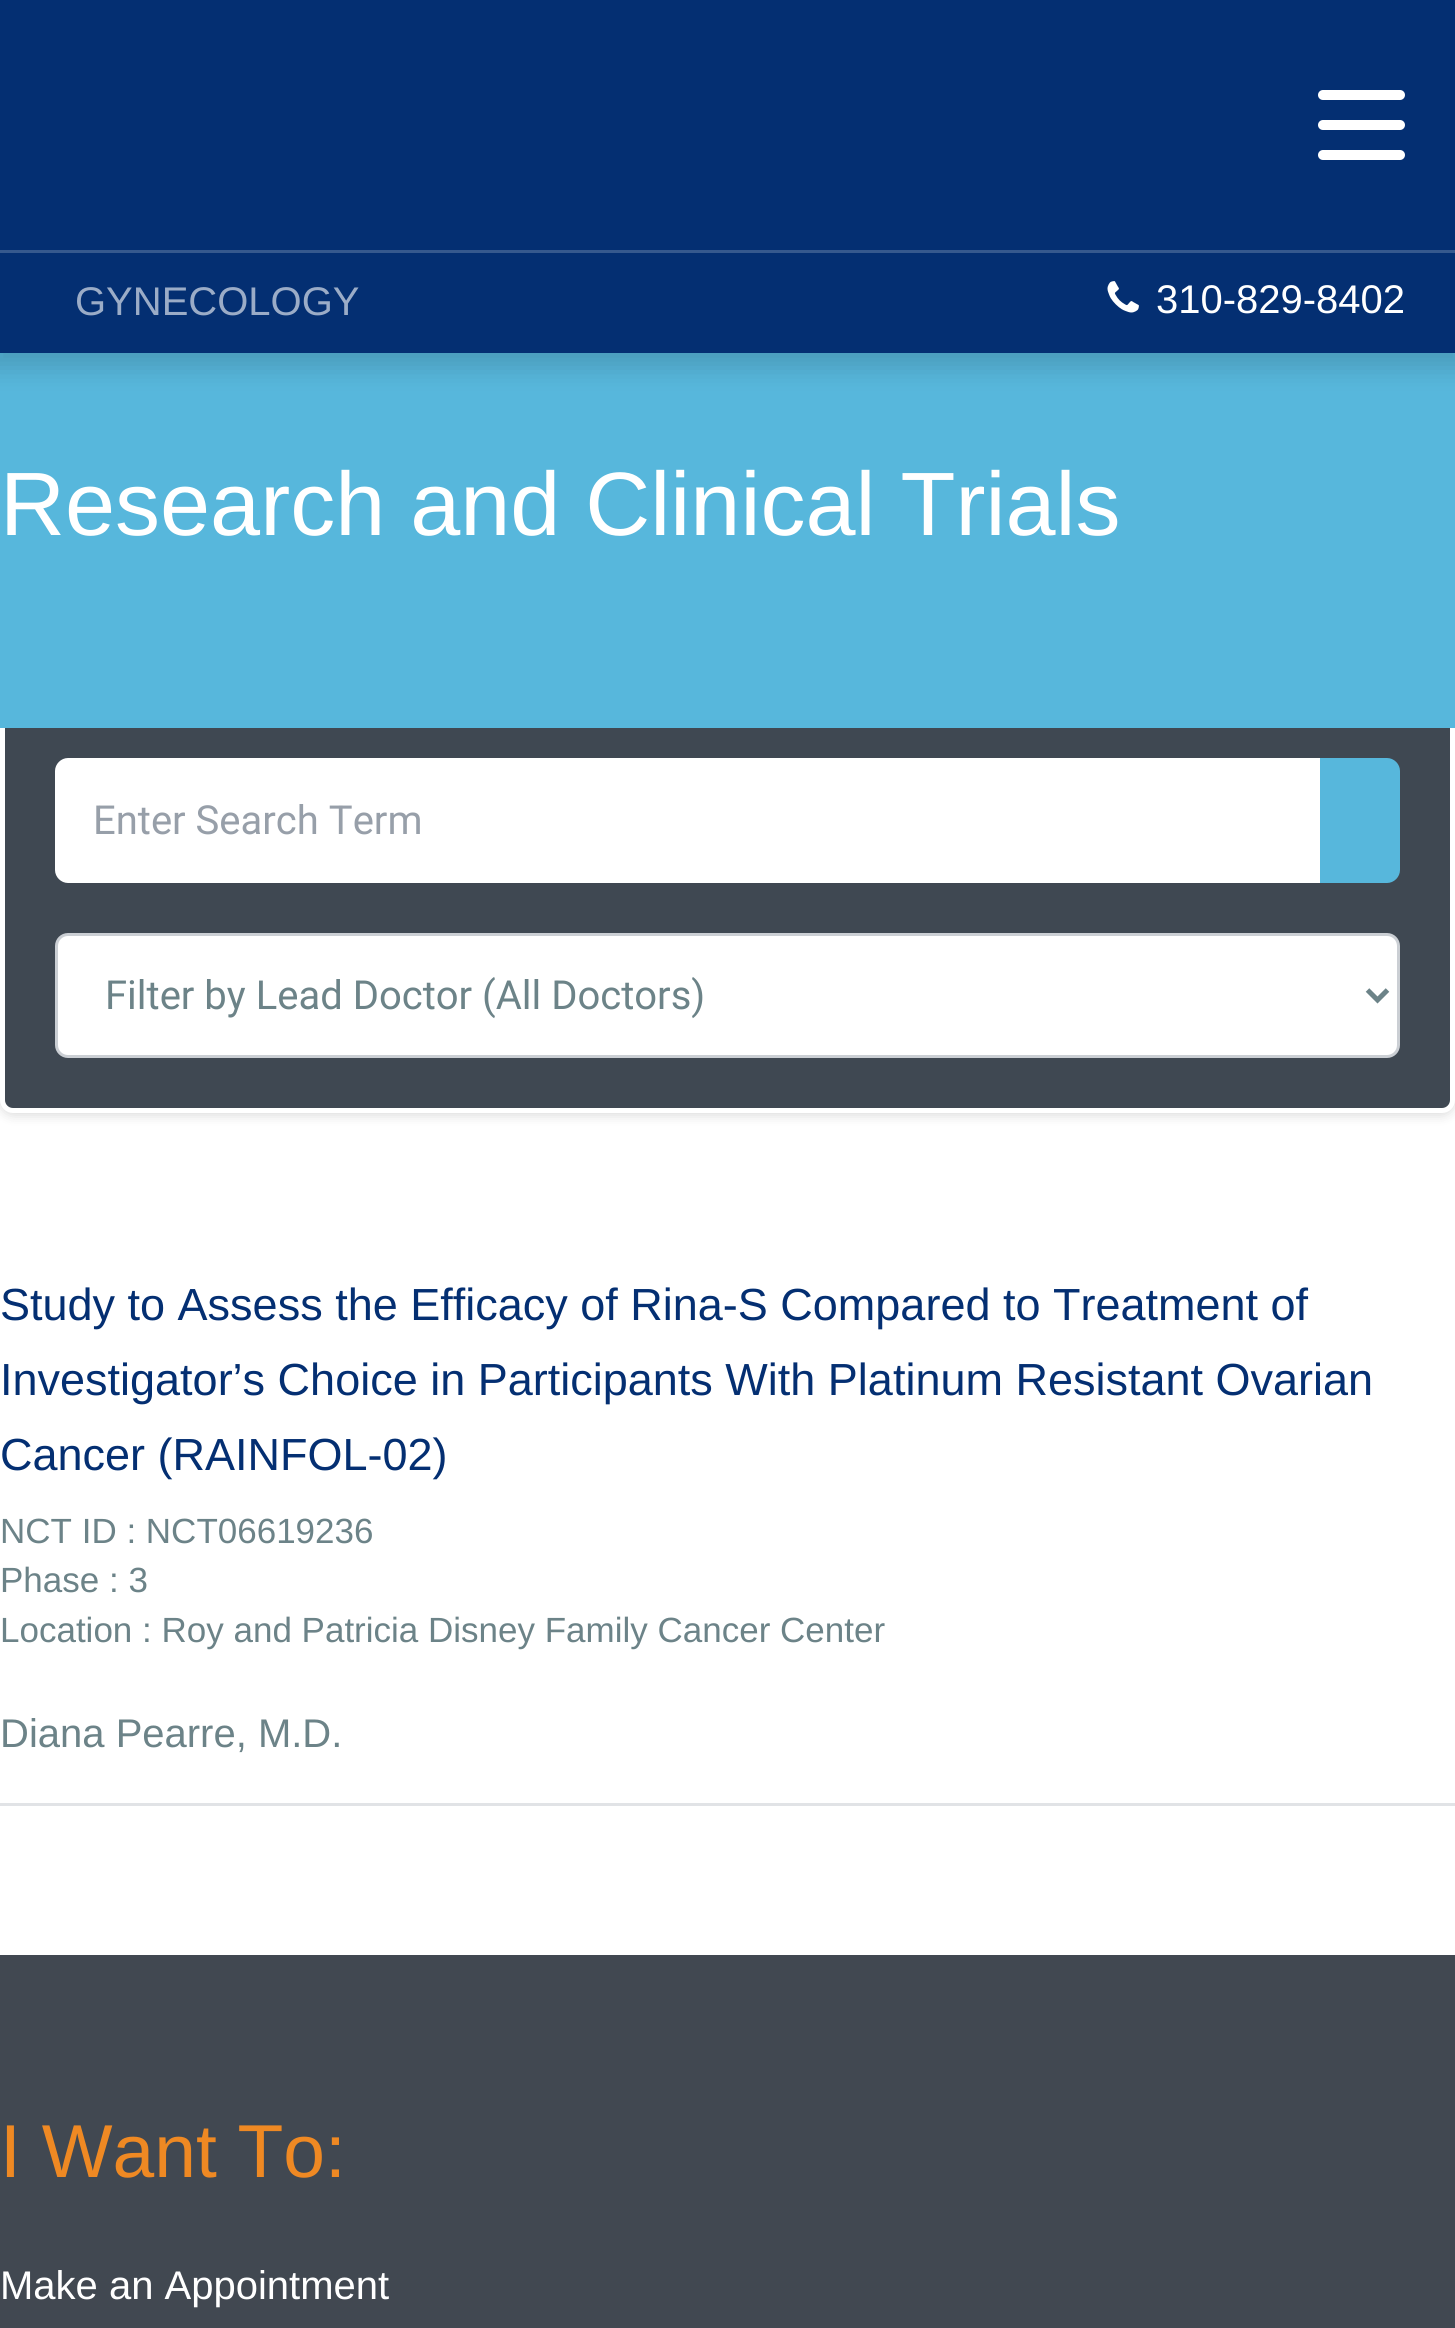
import math
import cairo


def round_path(ctx, x, y, w, h, r):
	ctx.new_sub_path()
	for i, (u, v) in enumerate([(x + w - r, y + h - r), (x + r, y + h - r), (x + r, y + r), (x + w - r, y + r)]):
		ctx.arc(u, v, r, i * math.pi / 2, (i + 1) * math.pi / 2)
	ctx.close_path()

def blur_box(ctx, x, y, w, h, r, blur, alpha):
	ctx.push_group_with_content(cairo.CONTENT_ALPHA)
	ctx.set_operator(cairo.OPERATOR_SOURCE)
	for i in range(15, -16, -2):
		e = blur * i / 6
		if min(w, h) + 2 * e > 0:
			ctx.set_source_rgba(0, 0, 0, alpha * math.erfc((i - 1) / 8.5) / 2)
			round_path(ctx, x - e, y - e, w + 2 * e, h + 2 * e, max(0, min(r + e + blur * .6, min(w, h) / 2 + e)))
			ctx.fill()
	ctx.mask(ctx.pop_group())

def paste(ctx, path, x, y, w, h):
	ctx.save()
	ctx.set_source_surface(cairo.ImageSurface.create_from_png(path), x, y)
	ctx.rectangle(x, y, w, h)
	ctx.fill()
	ctx.restore()

def draw(ctx):
	ctx.set_source_rgb(1, 1, 1)
	ctx.paint()
	ctx.set_source_rgb(0, 0, 0)
	blur_box(ctx, 0, 705, 1455, 410, 13, 6, 0.15)
	ctx.set_source_rgb(0.247, 0.282, 0.322)
	round_path(ctx, 2.5, 705.5, 1450, 405, 10.5)
	ctx.fill_preserve()
	ctx.set_source_rgb(1, 1, 1)
	ctx.set_line_width(5)
	ctx.stroke()
	ctx.set_source_rgb(0.341, 0.718, 0.863)
	ctx.rectangle(0, 353, 1455, 375)
	ctx.fill()
	ctx.set_source_rgb(0, 0, 0)
	blur_box(ctx, -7, 0, 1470, 368, 0, 12.5, 0.15)
	ctx.set_source_rgb(0.016, 0.184, 0.447)
	ctx.rectangle(0, 0, 1455, 353)
	ctx.fill()
	ctx.set_source_rgb(1, 1, 1)
	round_path(ctx, 1318, 120, 87, 10, 5)
	ctx.fill()
	round_path(ctx, 1318, 90, 87, 10, 5)
	ctx.fill()
	round_path(ctx, 1318, 150, 87, 10, 5)
	ctx.fill()
	ctx.set_source_rgb(0.212, 0.349, 0.557)
	ctx.rectangle(0, 250, 1455, 3)
	ctx.fill()
	ctx.select_font_face('Liberation Sans')
	ctx.set_font_size(40)
	ctx.set_source_rgb(0.608, 0.675, 0.78)
	ctx.move_to(75, 315)
	ctx.show_text('GYNECOLOGY')
	paste(ctx, 'media/1.png', 1107, 281, 32, 32)
	ctx.set_source_rgb(1, 1, 1)
	ctx.move_to(1156, 313)
	ctx.show_text('310-829-8402')
	ctx.set_font_size(90)
	ctx.move_to(0, 535)
	ctx.show_text('Research and Clinical Trials')
	ctx.new_path()
	ctx.move_to(68, 758)
	ctx.line_to(1320, 758)
	ctx.line_to(1320, 883)
	ctx.line_to(68, 883)
	ctx.curve_to(61, 883, 55, 877, 55, 870)
	ctx.line_to(55, 771)
	ctx.curve_to(55, 764, 61, 758, 68, 758)
	ctx.close_path()
	ctx.fill()
	ctx.select_font_face('Roboto')
	ctx.set_font_size(40)
	ctx.set_source_rgb(0.592, 0.624, 0.663)
	ctx.move_to(93, 834)
	ctx.show_text('Enter Search Term')
	ctx.set_source_rgb(0.341, 0.718, 0.863)
	ctx.new_path()
	ctx.move_to(1320, 758)
	ctx.line_to(1387, 758)
	ctx.curve_to(1394, 758, 1400, 764, 1400, 771)
	ctx.line_to(1400, 870)
	ctx.curve_to(1400, 877, 1394, 883, 1387, 883)
	ctx.line_to(1320, 883)
	ctx.close_path()
	ctx.fill()
	ctx.set_source_rgb(1, 1, 1)
	round_path(ctx, 56.5, 934.5, 1342, 122, 11.5)
	ctx.fill_preserve()
	ctx.set_source_rgb(0.796, 0.812, 0.831)
	ctx.set_line_width(3)
	ctx.stroke()
	ctx.new_path()
	ctx.move_to(1367.5, 990)
	ctx.line_to(1377.5, 1000)
	ctx.line_to(1387.5, 990)
	ctx.set_source_rgb(0.424, 0.514, 0.533)
	ctx.set_line_width(5)
	ctx.stroke()
	ctx.move_to(105, 1009)
	ctx.show_text('Filter by Lead Doctor (All Doctors)')
	ctx.set_source_rgb(0.882, 0.89, 0.902)
	ctx.rectangle(0, 1803, 1455, 3)
	ctx.fill()
	ctx.select_font_face('Liberation Sans')
	ctx.set_font_size(45)
	ctx.set_source_rgb(0.016, 0.184, 0.447)
	for x, y, s in [
		(0, 1320, 'Study to Assess the Efficacy of Rina-S Compared to Treatment of'),
		(0, 1395, 'Investigator’s Choice in Participants With Platinum Resistant Ovarian'),
		(0, 1470, 'Cancer (RAINFOL-02)'),
	]:
		ctx.move_to(x, y)
		ctx.show_text(s)
	ctx.set_font_size(35)
	ctx.set_source_rgb(0.424, 0.514, 0.533)
	for x, y, s in [
		(0, 1543, 'NCT ID : NCT06619236'),
		(0, 1592, 'Phase : 3'),
		(0, 1642, 'Location : Roy and Patricia Disney Family Cancer Center'),
	]:
		ctx.move_to(x, y)
		ctx.show_text(s)
	ctx.set_font_size(40)
	ctx.move_to(0, 1747)
	ctx.show_text('Diana Pearre, M.D.')
	ctx.set_source_rgb(0.255, 0.282, 0.318)
	ctx.rectangle(0, 1955, 1455, 373)
	ctx.fill()
	ctx.set_font_size(75)
	ctx.set_source_rgb(0.937, 0.537, 0.137)
	ctx.move_to(0, 2177)
	ctx.show_text('I Want To:')
	ctx.set_font_size(40)
	ctx.set_source_rgb(1, 1, 1)
	ctx.move_to(0, 2299)
	ctx.show_text('Make an Appointment')


surface = cairo.ImageSurface(cairo.FORMAT_RGB24, 1455, 2328)
ctx = cairo.Context(surface)
options = cairo.FontOptions()
options.set_hint_metrics(cairo.HINT_METRICS_OFF)
options.set_hint_style(cairo.HINT_STYLE_NONE)
ctx.set_font_options(options)
ctx.set_miter_limit(4)
draw(ctx)
surface.write_to_png('image.png')
